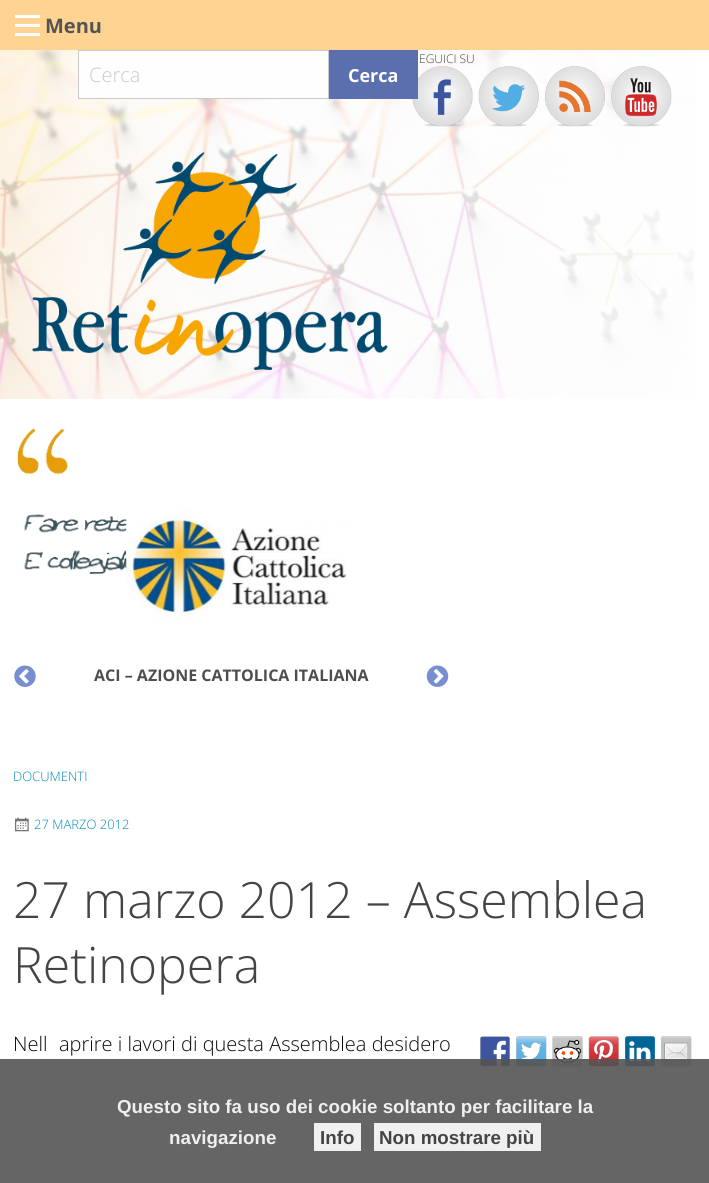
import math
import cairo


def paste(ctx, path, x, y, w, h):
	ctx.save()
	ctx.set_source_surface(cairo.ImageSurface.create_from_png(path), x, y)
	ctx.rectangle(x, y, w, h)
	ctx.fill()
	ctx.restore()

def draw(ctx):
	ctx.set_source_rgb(1, 1, 1)
	ctx.paint()
	paste(ctx, 'media/1.png', 0, 50, 695, 349)
	ctx.set_source_rgb(1, 0.831, 0.576)
	ctx.rectangle(0, 0, 709, 50)
	ctx.fill()
	ctx.set_source_rgb(0.996, 0.996, 0.996)
	ctx.rectangle(15, 33, 25, 3)
	ctx.rectangle(15, 24, 25, 3)
	ctx.rectangle(15, 15, 25, 3)
	ctx.fill()
	ctx.select_font_face('Open Sans', cairo.FONT_SLANT_NORMAL, cairo.FONT_WEIGHT_BOLD)
	ctx.set_font_size(20)
	ctx.set_source_rgb(0.329, 0.329, 0.329)
	ctx.move_to(45, 33)
	ctx.show_text('Menu')
	paste(ctx, 'media/2.png', 17, 428, 110, 146)
	ctx.select_font_face('Open Sans Light')
	ctx.set_font_size(12)
	ctx.set_source_rgb(0.267, 0.267, 0.267)
	ctx.move_to(419, 63)
	ctx.show_text('EGUICI SU')
	paste(ctx, 'media/3.png', 412, 66, 61, 61)
	paste(ctx, 'media/4.png', 478, 66, 61, 61)
	paste(ctx, 'media/5.png', 545, 66, 60, 61)
	paste(ctx, 'media/6.png', 611, 66, 61, 61)
	ctx.set_source_rgb(0.996, 0.996, 0.996)
	ctx.rectangle(78.5, 50.5, 250, 48)
	ctx.fill_preserve()
	ctx.set_source_rgb(0.792, 0.792, 0.792)
	ctx.set_line_width(1)
	ctx.stroke()
	ctx.set_font_size(20)
	ctx.move_to(89, 82)
	ctx.show_text('Cerca')
	ctx.set_source_rgb(0.357, 0.431, 0.682)
	ctx.rectangle(329, 50, 89, 49)
	ctx.fill()
	ctx.select_font_face('Open Sans', cairo.FONT_SLANT_NORMAL, cairo.FONT_WEIGHT_BOLD)
	ctx.set_font_size(18)
	ctx.set_source_rgb(1, 1, 1)
	ctx.move_to(348, 82)
	ctx.show_text('Cerca')
	paste(ctx, 'media/7.png', 14, 665, 22, 22)
	paste(ctx, 'media/8.png', 126, 510, 221, 110)
	ctx.set_font_size(16)
	ctx.set_source_rgb(0.306, 0.306, 0.306)
	ctx.move_to(94, 681)
	ctx.show_text('ACI – AZIONE CATTOLICA ITALIANA')
	paste(ctx, 'media/9.png', 426, 665, 23, 22)
	paste(ctx, 'media/10.png', 32, 152, 356, 218)
	ctx.select_font_face('Open Sans Light')
	ctx.set_font_size(13)
	ctx.set_source_rgb(0, 0.549, 0.729)
	ctx.move_to(13, 781)
	ctx.show_text('DOCUMENTI')
	paste(ctx, 'media/11.png', 15, 817, 14, 15)
	ctx.move_to(34, 829)
	ctx.show_text('27 MARZO 2012')
	ctx.set_font_size(50)
	ctx.set_source_rgb(0.267, 0.267, 0.267)
	ctx.move_to(13, 918)
	ctx.show_text('27 marzo 2012 – Assemblea')
	ctx.move_to(13, 983)
	ctx.show_text('Retinopera')
	ctx.set_font_size(20)
	ctx.set_source_rgb(0.039, 0.039, 0.039)
	ctx.move_to(13, 1051)
	ctx.show_text('Nell')
	ctx.move_to(59, 1051)
	ctx.show_text('aprire i lavori di questa Assemblea desidero')
	paste(ctx, 'media/12.png', 480, 1036, 30, 31)
	paste(ctx, 'media/13.png', 516, 1036, 31, 31)
	paste(ctx, 'media/14.png', 552, 1036, 31, 31)
	paste(ctx, 'media/15.png', 588, 1036, 31, 31)
	paste(ctx, 'media/16.png', 625, 1036, 30, 31)
	paste(ctx, 'media/17.png', 661, 1036, 31, 31)
	ctx.set_source_rgba(0.333, 0.333, 0.333, 0.9)
	ctx.rectangle(0, 1059, 709, 124)
	ctx.fill()
	ctx.select_font_face('Liberation Sans', cairo.FONT_SLANT_NORMAL, cairo.FONT_WEIGHT_BOLD)
	ctx.set_font_size(18.75)
	ctx.set_source_rgb(0.937, 0.937, 0.937)
	ctx.move_to(117, 1113)
	ctx.show_text('Questo sito fa uso dei cookie soltanto per facilitare la')
	ctx.move_to(169, 1144)
	ctx.show_text('navigazione')
	ctx.set_source_rgba(1, 1, 1, 0.9)
	ctx.rectangle(314, 1123, 47, 28)
	ctx.fill()
	ctx.set_source_rgb(0.267, 0.267, 0.267)
	ctx.move_to(320, 1144)
	ctx.show_text('Info')
	ctx.set_source_rgba(1, 1, 1, 0.9)
	ctx.rectangle(374, 1123, 167, 28)
	ctx.fill()
	ctx.set_source_rgb(0.267, 0.267, 0.267)
	ctx.move_to(379, 1144)
	ctx.show_text('Non mostrare più')


surface = cairo.ImageSurface(cairo.FORMAT_RGB24, 709, 1183)
ctx = cairo.Context(surface)
options = cairo.FontOptions()
options.set_hint_metrics(cairo.HINT_METRICS_OFF)
options.set_hint_style(cairo.HINT_STYLE_NONE)
ctx.set_font_options(options)
ctx.set_miter_limit(4)
draw(ctx)
surface.write_to_png('image.png')
